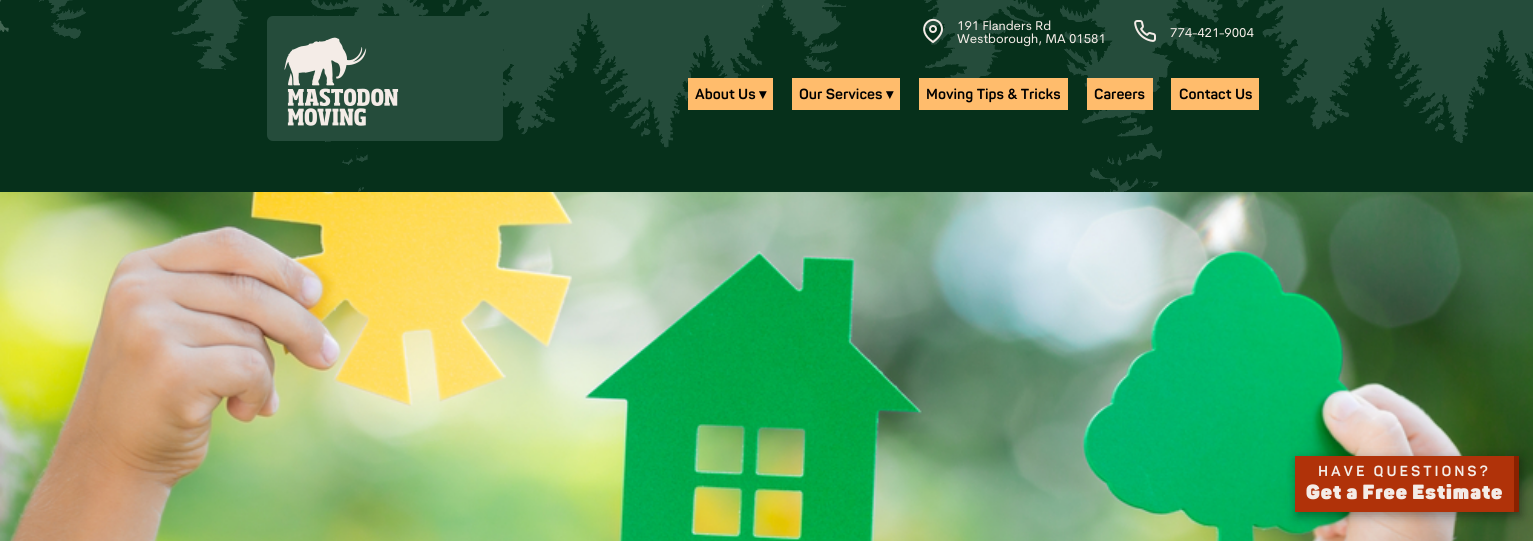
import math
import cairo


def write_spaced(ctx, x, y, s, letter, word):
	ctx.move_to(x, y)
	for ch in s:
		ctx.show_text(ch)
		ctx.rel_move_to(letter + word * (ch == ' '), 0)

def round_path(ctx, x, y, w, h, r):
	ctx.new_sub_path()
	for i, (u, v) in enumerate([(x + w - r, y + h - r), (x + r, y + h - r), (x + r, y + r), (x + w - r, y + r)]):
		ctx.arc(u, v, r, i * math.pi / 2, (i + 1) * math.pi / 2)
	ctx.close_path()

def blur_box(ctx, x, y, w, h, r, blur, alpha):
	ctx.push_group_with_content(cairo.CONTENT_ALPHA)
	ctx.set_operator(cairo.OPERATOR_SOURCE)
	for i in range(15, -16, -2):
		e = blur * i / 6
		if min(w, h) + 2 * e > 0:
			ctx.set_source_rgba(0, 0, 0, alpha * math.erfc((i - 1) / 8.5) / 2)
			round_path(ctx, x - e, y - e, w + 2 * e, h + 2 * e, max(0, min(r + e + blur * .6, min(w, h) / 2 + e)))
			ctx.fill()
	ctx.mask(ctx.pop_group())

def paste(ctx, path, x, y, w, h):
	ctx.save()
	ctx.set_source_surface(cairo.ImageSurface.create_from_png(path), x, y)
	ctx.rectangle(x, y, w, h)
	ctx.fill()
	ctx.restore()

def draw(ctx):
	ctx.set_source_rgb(1, 1, 1)
	ctx.paint()
	paste(ctx, 'media/1.png', 0, 0, 1533, 192)
	ctx.new_path()
	ctx.move_to(942, 29)
	ctx.curve_to(942, 36, 933, 42, 933, 42)
	ctx.curve_to(914, 29.5, 930, 13.5, 939.5, 22.5)
	ctx.curve_to(941, 24.5, 942, 26.5, 942, 29)
	ctx.close_path()
	ctx.set_source_rgb(0.957, 0.925, 0.906)
	ctx.set_line_cap(cairo.LINE_CAP_ROUND)
	ctx.set_line_join(cairo.LINE_JOIN_ROUND)
	ctx.stroke()
	ctx.arc(933, 29, 3, 0, 2 * math.pi)
	ctx.set_line_cap(cairo.LINE_CAP_BUTT)
	ctx.set_line_join(cairo.LINE_JOIN_MITER)
	ctx.stroke()
	ctx.select_font_face('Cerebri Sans')
	ctx.set_font_size(12.75)
	ctx.move_to(957, 30)
	ctx.show_text('191 Flanders Rd')
	ctx.move_to(957, 43)
	ctx.show_text('Westborough, MA 01581')
	paste(ctx, 'media/2.png', 1134, 20, 22, 22)
	ctx.move_to(1170, 37)
	ctx.show_text('774-421-9004')
	ctx.set_source_rgb(0.145, 0.298, 0.231)
	round_path(ctx, 267, 16, 236, 125, 6)
	ctx.fill()
	paste(ctx, 'media/3.png', 284, 37, 115, 89)
	ctx.set_source_rgb(1, 0.737, 0.424)
	ctx.rectangle(688, 78, 85, 32)
	ctx.fill()
	ctx.select_font_face('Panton', cairo.FONT_SLANT_NORMAL, cairo.FONT_WEIGHT_BOLD)
	ctx.set_font_size(14.4)
	ctx.set_source_rgb(0, 0, 0)
	ctx.move_to(695, 99)
	ctx.show_text('About Us')
	ctx.select_font_face('DejaVu Sans', cairo.FONT_SLANT_NORMAL, cairo.FONT_WEIGHT_BOLD)
	ctx.move_to(759, 99)
	ctx.show_text('▾')
	ctx.set_source_rgb(1, 0.737, 0.424)
	ctx.rectangle(792, 78, 108, 32)
	ctx.fill()
	ctx.select_font_face('Panton', cairo.FONT_SLANT_NORMAL, cairo.FONT_WEIGHT_BOLD)
	ctx.set_source_rgb(0, 0, 0)
	ctx.move_to(799, 99)
	ctx.show_text('Our Services')
	ctx.select_font_face('DejaVu Sans', cairo.FONT_SLANT_NORMAL, cairo.FONT_WEIGHT_BOLD)
	ctx.move_to(886, 99)
	ctx.show_text('▾')
	ctx.set_source_rgb(1, 0.737, 0.424)
	ctx.rectangle(919, 78, 149, 32)
	ctx.fill()
	ctx.select_font_face('Panton', cairo.FONT_SLANT_NORMAL, cairo.FONT_WEIGHT_BOLD)
	ctx.set_source_rgb(0, 0, 0)
	ctx.move_to(926, 99)
	ctx.show_text('Moving Tips & Tricks')
	ctx.set_source_rgb(1, 0.737, 0.424)
	ctx.rectangle(1087, 78, 66, 32)
	ctx.fill()
	ctx.set_source_rgb(0, 0, 0)
	ctx.move_to(1094, 99)
	ctx.show_text('Careers')
	ctx.set_source_rgb(1, 0.737, 0.424)
	ctx.rectangle(1171, 78, 88, 32)
	ctx.fill()
	ctx.set_source_rgb(0, 0, 0)
	ctx.move_to(1179, 99)
	ctx.show_text('Contact Us')
	paste(ctx, 'media/4.png', 0, 192, 1533, 349)
	ctx.set_source_rgb(0, 0, 0)
	blur_box(ctx, 1297, 460, 224, 56, 0, 5.5, 0.38)
	ctx.set_source_rgb(0.69, 0.196, 0.039)
	ctx.rectangle(1295, 456, 219, 56)
	ctx.fill()
	ctx.set_source_rgb(0.537, 0.129, 0)
	ctx.rectangle(1514, 456, 5, 56)
	ctx.fill()
	ctx.set_source_rgb(0.957, 0.925, 0.906)
	write_spaced(ctx, 1318, 476, 'HAVE QUESTIONS?', 2.9, 0)
	ctx.select_font_face('Panton Black')
	ctx.set_font_size(20.25)
	write_spaced(ctx, 1306, 499, 'Get a Free Estimate', 1, 0)


surface = cairo.ImageSurface(cairo.FORMAT_RGB24, 1533, 541)
ctx = cairo.Context(surface)
options = cairo.FontOptions()
options.set_hint_metrics(cairo.HINT_METRICS_OFF)
options.set_hint_style(cairo.HINT_STYLE_NONE)
ctx.set_font_options(options)
ctx.set_miter_limit(4)
draw(ctx)
surface.write_to_png('image.png')
